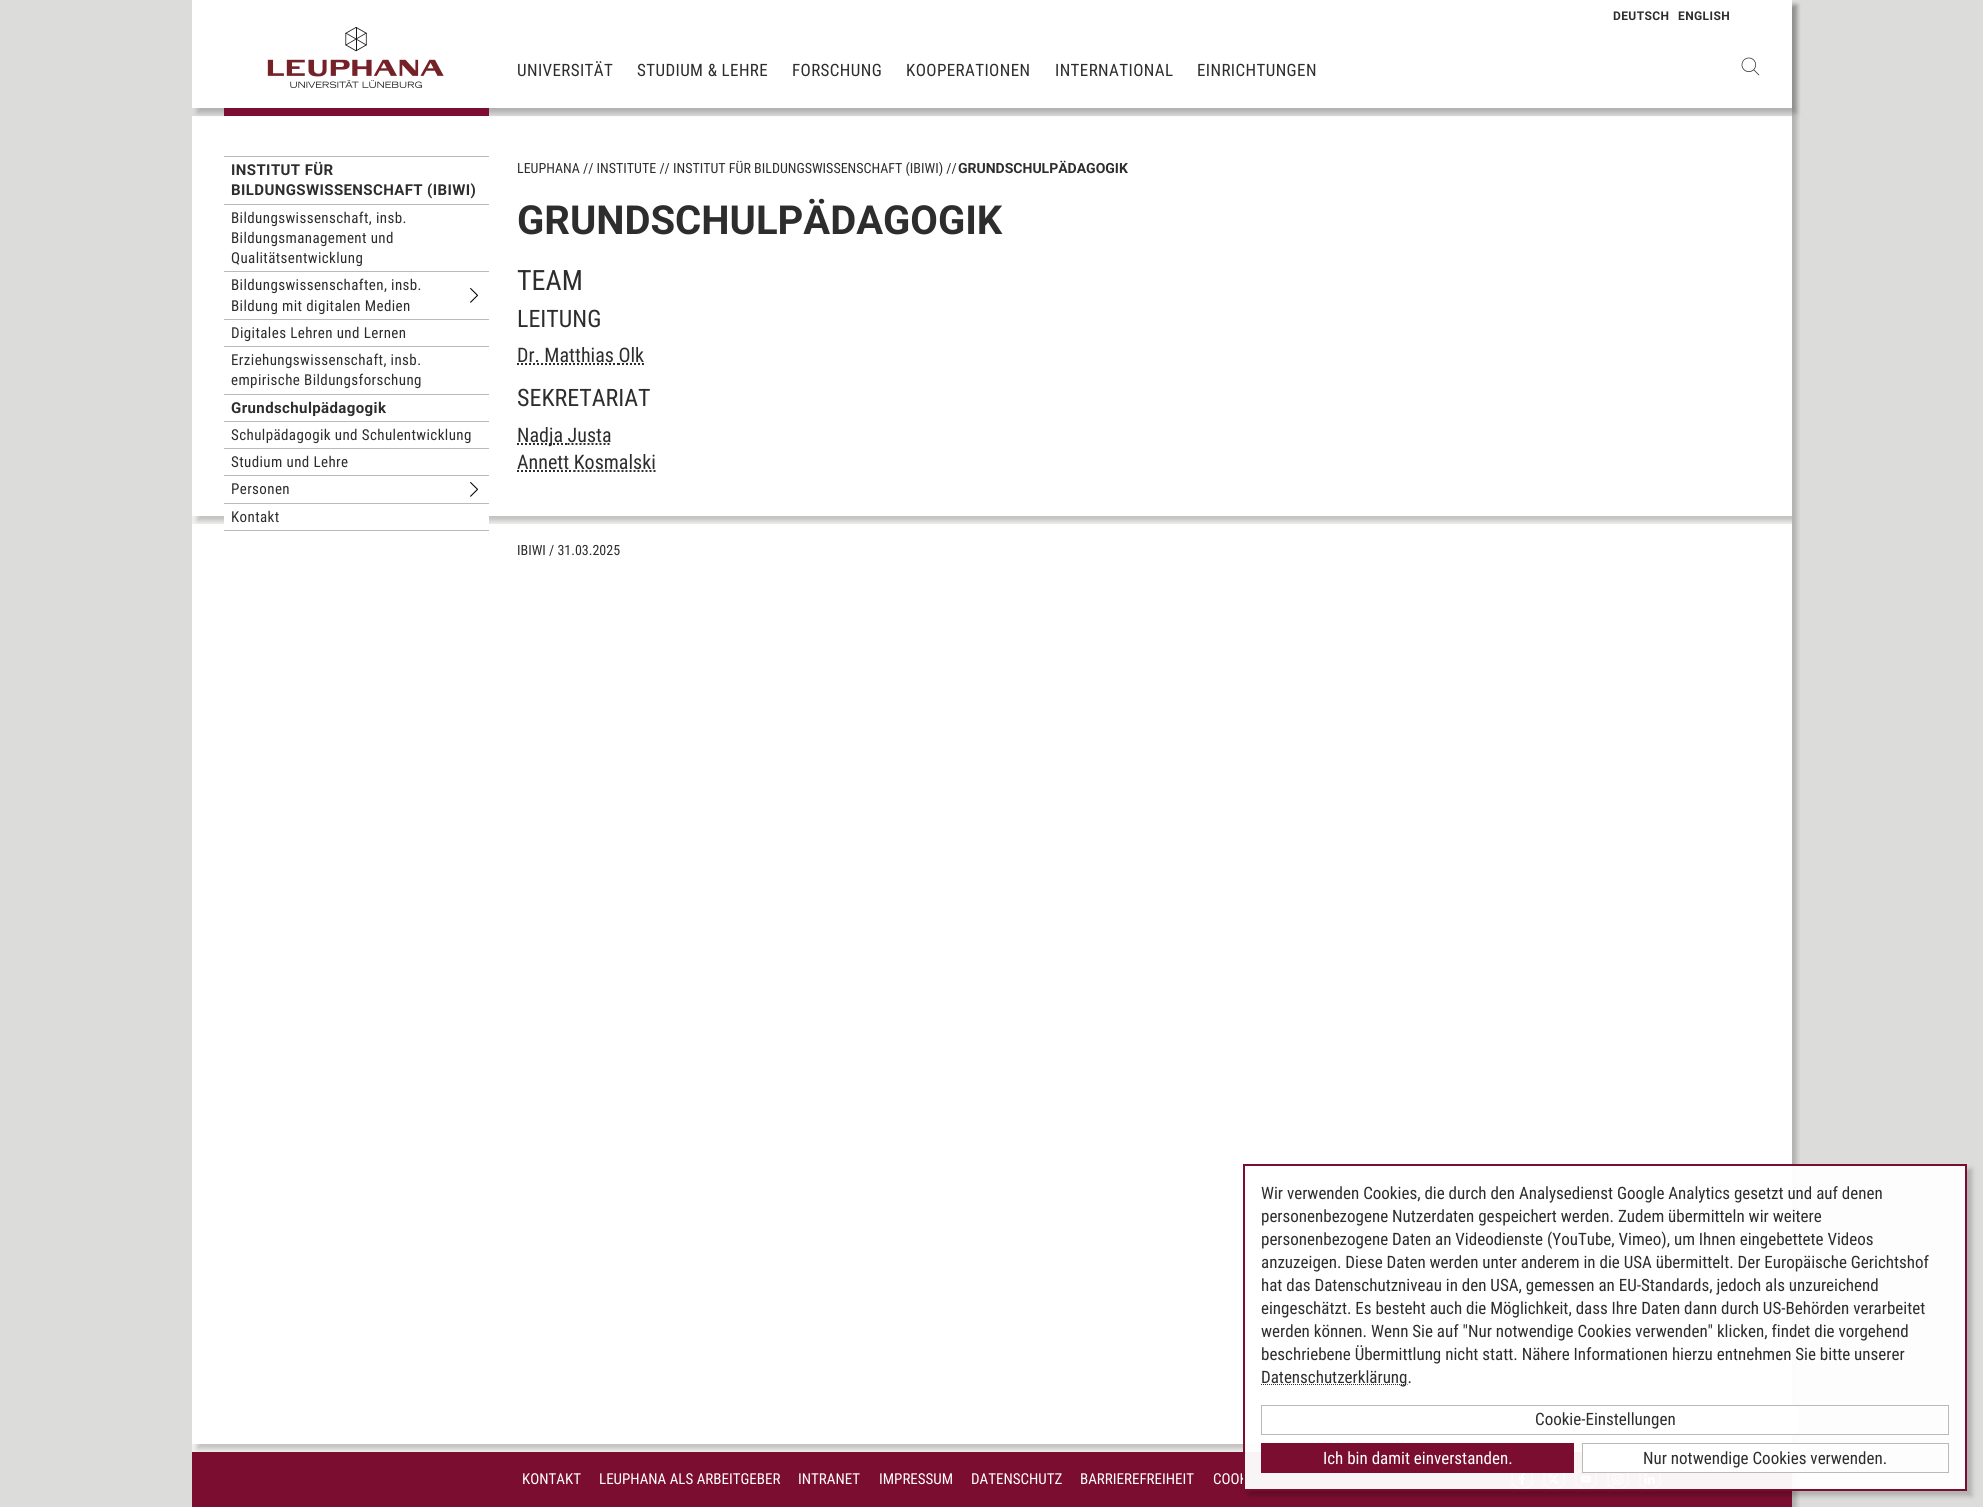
import math
import cairo


def write_spaced(ctx, x, y, s, letter, word):
	ctx.move_to(x, y)
	for ch in s:
		ctx.show_text(ch)
		ctx.rel_move_to(letter + word * (ch == ' '), 0)

def round_path(ctx, x, y, w, h, r):
	ctx.new_sub_path()
	for i, (u, v) in enumerate([(x + w - r, y + h - r), (x + r, y + h - r), (x + r, y + r), (x + w - r, y + r)]):
		ctx.arc(u, v, r, i * math.pi / 2, (i + 1) * math.pi / 2)
	ctx.close_path()

def blur_box(ctx, x, y, w, h, r, blur, alpha):
	ctx.push_group_with_content(cairo.CONTENT_ALPHA)
	ctx.set_operator(cairo.OPERATOR_SOURCE)
	for i in range(15, -16, -2):
		e = blur * i / 6
		if min(w, h) + 2 * e > 0:
			ctx.set_source_rgba(0, 0, 0, alpha * math.erfc((i - 1) / 8.5) / 2)
			round_path(ctx, x - e, y - e, w + 2 * e, h + 2 * e, max(0, min(r + e + blur * .6, min(w, h) / 2 + e)))
			ctx.fill()
	ctx.mask(ctx.pop_group())

def paste(ctx, path, x, y, w, h):
	ctx.save()
	ctx.set_source_surface(cairo.ImageSurface.create_from_png(path), x, y)
	ctx.rectangle(x, y, w, h)
	ctx.fill()
	ctx.restore()

def draw(ctx):
	ctx.set_source_rgb(0.863, 0.867, 0.859)
	ctx.paint()
	ctx.save()
	ctx.rectangle(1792, 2, 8, 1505)
	ctx.clip()
	ctx.set_source_rgb(0, 0, 0)
	blur_box(ctx, 197, 5, 1600, 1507, 0, 2.5, 0.2)
	ctx.restore()
	ctx.set_source_rgb(1, 1, 1)
	ctx.rectangle(192, 0, 1600, 108)
	ctx.fill()
	ctx.set_source_rgb(0.945, 0.945, 0.941)
	ctx.rectangle(192, 516, 1600, 8)
	ctx.fill()
	ctx.save()
	ctx.rectangle(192, 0, 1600, 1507)
	ctx.clip()
	ctx.set_source_rgb(0, 0, 0)
	blur_box(ctx, 197, 121, 1600, 400, 0, 2.5, 0.2)
	ctx.restore()
	ctx.set_source_rgb(1, 1, 1)
	ctx.rectangle(192, 116, 1600, 400)
	ctx.fill()
	ctx.save()
	ctx.set_fill_rule(cairo.FILL_RULE_EVEN_ODD)
	ctx.new_path()
	ctx.move_to(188, 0)
	ctx.line_to(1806, 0)
	ctx.line_to(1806, 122)
	ctx.line_to(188, 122)
	ctx.close_path()
	ctx.move_to(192, 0)
	ctx.line_to(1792, 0)
	ctx.line_to(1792, 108)
	ctx.line_to(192, 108)
	ctx.close_path()
	ctx.clip()
	ctx.set_source_rgb(0, 0, 0)
	blur_box(ctx, 197, 5, 1600, 108, 0, 2.5, 0.2)
	ctx.restore()
	ctx.select_font_face('Roboto', cairo.FONT_SLANT_NORMAL, cairo.FONT_WEIGHT_BOLD)
	ctx.set_font_size(12)
	ctx.set_source_rgb(0.176, 0.176, 0.176)
	write_spaced(ctx, 1613, 20, 'DEUTSCH', 0.4, 0)
	write_spaced(ctx, 1678, 20, 'ENGLISH', 0.4, 0)
	paste(ctx, 'media/1.png', 267, 27, 177, 61)
	ctx.set_source_rgb(0.482, 0.055, 0.188)
	ctx.rectangle(224, 108, 265, 8)
	ctx.fill()
	ctx.select_font_face('Roboto Condensed')
	ctx.set_font_size(17)
	ctx.set_source_rgb(0.176, 0.176, 0.176)
	for x, y, s in [
		(517, 76, 'UNIVERSITÄT'),
		(637, 76, 'STUDIUM & LEHRE'),
		(792, 76, 'FORSCHUNG'),
		(906, 76, 'KOOPERATIONEN'),
		(1055, 76, 'INTERNATIONAL'),
		(1197, 76, 'EINRICHTUNGEN'),
	]:
		write_spaced(ctx, x, y, s, 0.4, 0)
	paste(ctx, 'media/2.png', 1741, 57, 19, 19)
	ctx.set_source_rgb(0.725, 0.733, 0.714)
	ctx.rectangle(224, 156, 265, 1)
	ctx.fill()
	ctx.select_font_face('Roboto', cairo.FONT_SLANT_NORMAL, cairo.FONT_WEIGHT_BOLD)
	ctx.set_font_size(15)
	ctx.set_source_rgb(0.176, 0.176, 0.176)
	write_spaced(ctx, 231, 175, 'INSTITUT FÜR', 0.4, 0)
	write_spaced(ctx, 231, 195, 'BILDUNGSWISSENSCHAFT (IBIWI)', 0.4, 0)
	ctx.set_source_rgb(0.725, 0.733, 0.714)
	ctx.rectangle(224, 204, 265, 1)
	ctx.fill()
	ctx.select_font_face('Roboto Condensed')
	ctx.set_source_rgb(0.176, 0.176, 0.176)
	for x, y, s in [
		(231, 223, 'Bildungswissenschaft, insb.'),
		(231, 243, 'Bildungsmanagement und'),
		(231, 263, 'Qualitätsentwicklung'),
	]:
		write_spaced(ctx, x, y, s, 0.4, 0)
	ctx.set_source_rgb(0.725, 0.733, 0.714)
	ctx.rectangle(224, 271, 265, 1)
	ctx.fill()
	ctx.set_source_rgb(0.176, 0.176, 0.176)
	write_spaced(ctx, 231, 290, 'Bildungswissenschaften, insb.', 0.4, 0)
	write_spaced(ctx, 231, 311, 'Bildung mit digitalen Medien', 0.4, 0)
	paste(ctx, 'media/3.png', 470, 288, 8, 15)
	ctx.set_source_rgb(0.725, 0.733, 0.714)
	ctx.rectangle(224, 319, 265, 1)
	ctx.fill()
	ctx.set_source_rgb(0.176, 0.176, 0.176)
	write_spaced(ctx, 231, 338, 'Digitales Lehren und Lernen', 0.4, 0)
	ctx.set_source_rgb(0.725, 0.733, 0.714)
	ctx.rectangle(224, 346, 265, 1)
	ctx.fill()
	ctx.set_source_rgb(0.176, 0.176, 0.176)
	write_spaced(ctx, 231, 365, 'Erziehungswissenschaft, insb.', 0.4, 0)
	write_spaced(ctx, 231, 385, 'empirische Bildungsforschung', 0.4, 0)
	ctx.set_source_rgb(0.725, 0.733, 0.714)
	ctx.rectangle(224, 394, 265, 1)
	ctx.fill()
	ctx.select_font_face('Roboto', cairo.FONT_SLANT_NORMAL, cairo.FONT_WEIGHT_BOLD)
	ctx.set_source_rgb(0.176, 0.176, 0.176)
	write_spaced(ctx, 231, 413, 'Grundschulpädagogik', 0.4, 0)
	ctx.set_source_rgb(0.725, 0.733, 0.714)
	ctx.rectangle(224, 421, 265, 1)
	ctx.fill()
	ctx.select_font_face('Roboto Condensed')
	ctx.set_source_rgb(0.176, 0.176, 0.176)
	write_spaced(ctx, 231, 440, 'Schulpädagogik und Schulentwicklung', 0.4, 0)
	ctx.set_source_rgb(0.725, 0.733, 0.714)
	ctx.rectangle(224, 448, 265, 1)
	ctx.fill()
	ctx.set_source_rgb(0.176, 0.176, 0.176)
	write_spaced(ctx, 231, 467, 'Studium und Lehre', 0.4, 0)
	ctx.set_source_rgb(0.725, 0.733, 0.714)
	ctx.rectangle(224, 475, 265, 1)
	ctx.fill()
	ctx.set_source_rgb(0.176, 0.176, 0.176)
	write_spaced(ctx, 231, 494, 'Personen', 0.4, 0)
	paste(ctx, 'media/3.png', 470, 482, 8, 15)
	ctx.set_source_rgb(0.945, 0.945, 0.941)
	ctx.rectangle(192, 1444, 1390, 8)
	ctx.fill()
	ctx.set_source_rgb(0.482, 0.055, 0.188)
	ctx.rectangle(192, 1452, 1600, 55)
	ctx.fill()
	ctx.save()
	ctx.rectangle(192, 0, 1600, 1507)
	ctx.clip()
	ctx.set_source_rgb(0, 0, 0)
	blur_box(ctx, 197, 529, 1600, 920, 0, 2.5, 0.2)
	ctx.restore()
	ctx.set_source_rgb(1, 1, 1)
	ctx.rectangle(224, 516, 265, 8)
	ctx.fill()
	ctx.set_source_rgb(0.725, 0.733, 0.714)
	ctx.rectangle(224, 503, 265, 1)
	ctx.fill()
	ctx.set_source_rgb(1, 1, 1)
	ctx.rectangle(192, 524, 1600, 920)
	ctx.fill()
	ctx.set_source_rgb(0.725, 0.733, 0.714)
	ctx.rectangle(224, 530, 265, 1)
	ctx.fill()
	ctx.set_source_rgb(0.176, 0.176, 0.176)
	write_spaced(ctx, 231, 522, 'Kontakt', 0.4, 0)
	ctx.set_font_size(14)
	ctx.move_to(517, 173)
	ctx.show_text('LEUPHANA // INSTITUTE // INSTITUT FÜR BILDUNGSWISSENSCHAFT (IBIWI) //')
	ctx.select_font_face('Roboto', cairo.FONT_SLANT_NORMAL, cairo.FONT_WEIGHT_BOLD)
	ctx.move_to(958, 173)
	ctx.show_text('GRUNDSCHULPÄDAGOGIK')
	ctx.set_font_size(40)
	ctx.move_to(517, 234)
	ctx.show_text('GRUNDSCHULPÄDAGOGIK')
	ctx.select_font_face('Roboto Condensed')
	ctx.set_font_size(28)
	ctx.move_to(517, 290)
	ctx.show_text('TEAM')
	ctx.set_font_size(24)
	ctx.move_to(517, 327)
	ctx.show_text('LEITUNG')
	ctx.set_font_size(20)
	ctx.move_to(517, 362)
	ctx.show_text('Dr. Matthias Olk')
	ctx.new_path()
	ctx.move_to(517, 364)
	ctx.line_to(618, 364)
	ctx.set_dash([2, 2])
	ctx.stroke()
	ctx.new_path()
	ctx.move_to(618, 364)
	ctx.line_to(644, 364)
	ctx.stroke()
	ctx.set_font_size(24)
	ctx.move_to(517, 406)
	ctx.show_text('SEKRETARIAT')
	ctx.new_path()
	ctx.move_to(517, 444)
	ctx.line_to(567.5, 444)
	ctx.stroke()
	ctx.set_font_size(20)
	ctx.move_to(517, 442)
	ctx.show_text('Nadja Justa')
	ctx.new_path()
	ctx.move_to(567.5, 444)
	ctx.line_to(611.5, 444)
	ctx.stroke()
	ctx.move_to(517, 469)
	ctx.show_text('Annett Kosmalski')
	ctx.new_path()
	ctx.move_to(517, 471)
	ctx.line_to(573.5, 471)
	ctx.stroke()
	ctx.new_path()
	ctx.move_to(573.5, 471)
	ctx.line_to(655.5, 471)
	ctx.stroke()
	ctx.set_font_size(14)
	ctx.move_to(517, 555)
	ctx.show_text('IBIWI / 31.03.2025')
	ctx.set_font_size(15)
	ctx.set_source_rgb(1, 1, 1)
	for x, y, s in [
		(522, 1484, 'KONTAKT'),
		(599, 1484, 'LEUPHANA ALS ARBEITGEBER'),
		(798, 1484, 'INTRANET'),
		(879, 1484, 'IMPRESSUM'),
		(971, 1484, 'DATENSCHUTZ'),
		(1080, 1484, 'BARRIEREFREIHEIT'),
		(1213, 1484, 'COOK'),
	]:
		ctx.move_to(x, y)
		ctx.show_text(s)
	paste(ctx, 'media/4.png', 1511, 1473, 22, 16)
	paste(ctx, 'media/5.png', 1519, 1473, 7, 13)
	paste(ctx, 'media/4.png', 1543, 1473, 22, 16)
	paste(ctx, 'media/6.png', 1548, 1474, 11, 10)
	paste(ctx, 'media/7.png', 1575, 1469, 22, 20)
	paste(ctx, 'media/8.png', 1580, 1475, 12, 8)
	paste(ctx, 'media/4.png', 1607, 1473, 22, 16)
	paste(ctx, 'media/9.png', 1612, 1473, 11, 12)
	paste(ctx, 'media/4.png', 1639, 1473, 22, 16)
	paste(ctx, 'media/10.png', 1644, 1473, 11, 12)
	ctx.save()
	ctx.set_fill_rule(cairo.FILL_RULE_EVEN_ODD)
	ctx.new_path()
	ctx.move_to(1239, 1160)
	ctx.line_to(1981, 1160)
	ctx.line_to(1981, 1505)
	ctx.line_to(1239, 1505)
	ctx.close_path()
	ctx.move_to(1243, 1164)
	ctx.line_to(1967, 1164)
	ctx.line_to(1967, 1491)
	ctx.line_to(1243, 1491)
	ctx.close_path()
	ctx.clip()
	ctx.set_source_rgb(0, 0, 0)
	blur_box(ctx, 1248, 1169, 724, 327, 0, 2.5, 0.2)
	ctx.restore()
	ctx.set_source_rgba(1, 1, 1, 0.95)
	ctx.rectangle(1244, 1165, 722, 325)
	ctx.fill_preserve()
	ctx.set_source_rgb(0.482, 0.055, 0.188)
	ctx.set_dash([])
	ctx.stroke()
	ctx.set_font_size(17)
	ctx.set_source_rgb(0.176, 0.176, 0.176)
	for x, y, s in [
		(1261, 1199, 'Wir verwenden Cookies, die durch den Analysedienst Google Analytics gesetzt und auf denen'),
		(1261, 1222, 'personenbezogene Nutzerdaten gespeichert werden. Zudem übermitteln wir weitere'),
		(1261, 1245, 'personenbezogene Daten an Videodienste (YouTube, Vimeo), um Ihnen eingebettete Videos'),
		(1261, 1268, 'anzuzeigen. Diese Daten werden unter anderem in die USA übermittelt. Der Europäische Gerichtshof'),
		(1261, 1291, 'hat das Datenschutzniveau in den USA, gemessen an EU-Standards, jedoch als unzureichend'),
		(1261, 1314, 'eingeschätzt. Es besteht auch die Möglichkeit, dass Ihre Daten dann durch US-Behörden verarbeitet'),
		(1261, 1337, 'werden können. Wenn Sie auf "Nur notwendige Cookies verwenden" klicken, findet die vorgehend'),
		(1261, 1360, 'beschriebene Übermittlung nicht statt. Nähere Informationen hierzu entnehmen Sie bitte unserer'),
	]:
		ctx.move_to(x, y)
		ctx.show_text(s)
	ctx.new_path()
	ctx.move_to(1261, 1384.5)
	ctx.line_to(1407.5, 1384.5)
	ctx.set_line_width(1)
	ctx.set_dash([1, 1])
	ctx.stroke()
	ctx.move_to(1261, 1383)
	ctx.show_text('Datenschutzerklärung.')
	ctx.set_source_rgb(1, 1, 1)
	ctx.rectangle(1792, 1406, 6, 28)
	ctx.fill()
	ctx.rectangle(1261.5, 1405.5, 687, 29)
	ctx.set_source_rgb(0.725, 0.733, 0.714)
	ctx.set_dash([])
	ctx.stroke()
	ctx.set_source_rgb(0.176, 0.176, 0.176)
	ctx.move_to(1535, 1425)
	ctx.show_text('Cookie-Einstellungen')
	ctx.set_source_rgb(0.482, 0.055, 0.188)
	ctx.rectangle(1261, 1443, 313, 30)
	ctx.fill()
	ctx.set_source_rgb(1, 1, 1)
	ctx.move_to(1323, 1464)
	ctx.show_text('Ich bin damit einverstanden.')
	ctx.rectangle(1583, 1444, 215, 28)
	ctx.fill()
	ctx.rectangle(1582.5, 1443.5, 366, 29)
	ctx.set_source_rgb(0.725, 0.733, 0.714)
	ctx.stroke()
	ctx.set_source_rgb(0.176, 0.176, 0.176)
	ctx.move_to(1643, 1464)
	ctx.show_text('Nur notwendige Cookies verwenden.')


surface = cairo.ImageSurface(cairo.FORMAT_RGB24, 1983, 1507)
ctx = cairo.Context(surface)
options = cairo.FontOptions()
options.set_hint_metrics(cairo.HINT_METRICS_OFF)
options.set_hint_style(cairo.HINT_STYLE_NONE)
ctx.set_font_options(options)
ctx.set_miter_limit(4)
draw(ctx)
surface.write_to_png('image.png')
